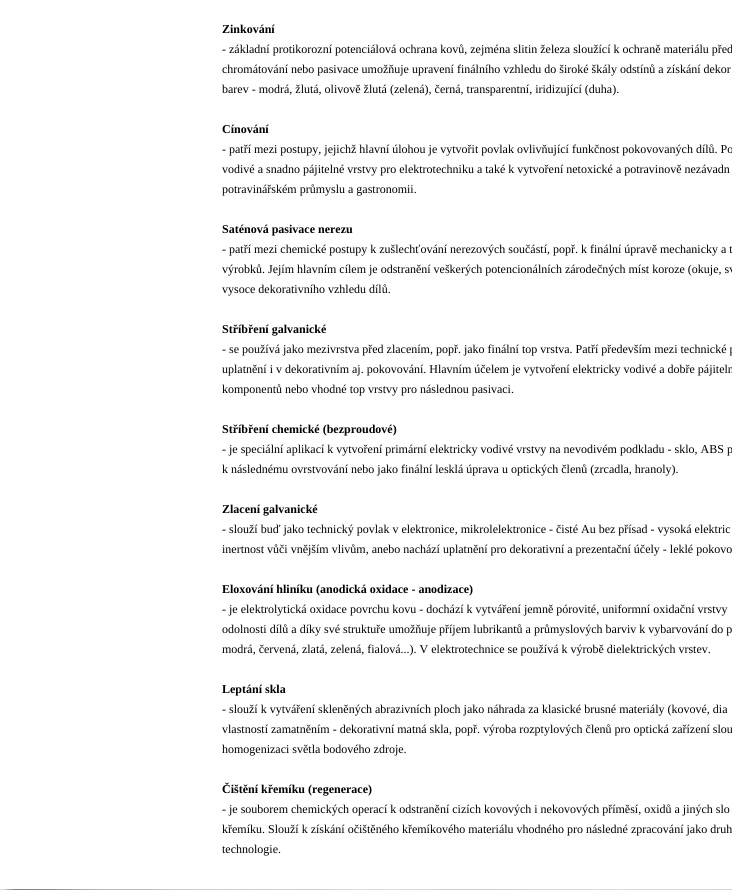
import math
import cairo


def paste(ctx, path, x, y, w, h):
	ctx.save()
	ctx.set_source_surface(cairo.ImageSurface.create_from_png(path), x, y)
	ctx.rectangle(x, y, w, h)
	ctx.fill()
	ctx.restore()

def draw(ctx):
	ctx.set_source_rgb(0.812, 0.871, 0.918)
	ctx.paint()
	ctx.set_source_rgb(1, 1, 1)
	ctx.rectangle(0, 0, 732, 889)
	ctx.fill()
	ctx.select_font_face('Liberation Serif', cairo.FONT_SLANT_NORMAL, cairo.FONT_WEIGHT_BOLD)
	ctx.set_font_size(12)
	ctx.set_source_rgb(0, 0, 0)
	ctx.move_to(222, 33)
	ctx.show_text('Zinkování')
	ctx.select_font_face('Liberation Serif')
	for x, y, s in [
		(222, 53, '- základní protikorozní potenciálová ochrana kovů, zejména slitin železa sloužící k ochraně materiálu před'),
		(222, 73, 'chromátování nebo pasivace umožňuje upravení finálního vzhledu do široké škály odstínů a získání dekor'),
		(222, 93, 'barev - modrá, žlutá, olivově žlutá (zelená), černá, transparentní, iridizující (duha).'),
	]:
		ctx.move_to(x, y)
		ctx.show_text(s)
	ctx.select_font_face('Liberation Serif', cairo.FONT_SLANT_NORMAL, cairo.FONT_WEIGHT_BOLD)
	ctx.move_to(222, 133)
	ctx.show_text('Cínování')
	ctx.select_font_face('Liberation Serif')
	for x, y, s in [
		(222, 153, '- patří mezi postupy, jejichž hlavní úlohou je vytvořit povlak ovlivňující funkčnost pokovovaných dílů. Po'),
		(222, 173, 'vodivé a snadno pájitelné vrstvy pro elektrotechniku a také k vytvoření netoxické a potravinově nezávadn'),
		(222, 193, 'potravinářském průmyslu a gastronomii.'),
	]:
		ctx.move_to(x, y)
		ctx.show_text(s)
	ctx.select_font_face('Liberation Serif', cairo.FONT_SLANT_NORMAL, cairo.FONT_WEIGHT_BOLD)
	ctx.move_to(222, 233)
	ctx.show_text('Saténová pasivace nerezu')
	ctx.select_font_face('Liberation Serif')
	for x, y, s in [
		(222, 253, '- patří mezi chemické postupy k zušlechťování nerezových součástí, popř. k finální úpravě mechanicky a t'),
		(222, 273, 'výrobků. Jejím hlavním cílem je odstranění veškerých potencionálních zárodečných míst koroze (okuje, sv'),
		(222, 293, 'vysoce dekorativního vzhledu dílů.'),
	]:
		ctx.move_to(x, y)
		ctx.show_text(s)
	ctx.select_font_face('Liberation Serif', cairo.FONT_SLANT_NORMAL, cairo.FONT_WEIGHT_BOLD)
	ctx.move_to(222, 333)
	ctx.show_text('Stříbření galvanické')
	ctx.select_font_face('Liberation Serif')
	for x, y, s in [
		(222, 353, '- se používá jako mezivrstva před zlacením, popř. jako finální top vrstva. Patří především mezi technické p'),
		(222, 373, 'uplatnění i v dekorativním aj. pokovování. Hlavním účelem je vytvoření elektricky vodivé a dobře pájiteln'),
		(222, 393, 'komponentů nebo vhodné top vrstvy pro následnou pasivaci.'),
	]:
		ctx.move_to(x, y)
		ctx.show_text(s)
	ctx.select_font_face('Liberation Serif', cairo.FONT_SLANT_NORMAL, cairo.FONT_WEIGHT_BOLD)
	ctx.move_to(222, 433)
	ctx.show_text('Stříbření chemické (bezproudové)')
	ctx.select_font_face('Liberation Serif')
	ctx.move_to(222, 453)
	ctx.show_text('- je speciální aplikací k vytvoření primární elektricky vodivé vrstvy na nevodivém podkladu - sklo, ABS p')
	ctx.move_to(222, 473)
	ctx.show_text('k následnému ovrstvování nebo jako finální lesklá úprava u optických členů (zrcadla, hranoly).')
	ctx.select_font_face('Liberation Serif', cairo.FONT_SLANT_NORMAL, cairo.FONT_WEIGHT_BOLD)
	ctx.move_to(222, 513)
	ctx.show_text('Zlacení galvanické')
	ctx.select_font_face('Liberation Serif')
	ctx.move_to(222, 533)
	ctx.show_text('- slouží buď jako technický povlak v elektronice, mikrolelektronice - čisté Au bez přísad - vysoká elektric')
	ctx.move_to(222, 553)
	ctx.show_text('inertnost vůči vnějším vlivům, anebo nachází uplatnění pro dekorativní a prezentační účely - leklé pokovo')
	ctx.select_font_face('Liberation Serif', cairo.FONT_SLANT_NORMAL, cairo.FONT_WEIGHT_BOLD)
	ctx.move_to(222, 593)
	ctx.show_text('Eloxování hliníku (anodická oxidace - anodizace)')
	ctx.select_font_face('Liberation Serif')
	for x, y, s in [
		(222, 613, '- je elektrolytická oxidace povrchu kovu - dochází k vytváření jemně pórovité, uniformní oxidační vrstvy'),
		(222, 633, 'odolnosti dílů a díky své struktuře umožňuje příjem lubrikantů a průmyslových barviv k vybarvování do p'),
		(222, 653, 'modrá, červená, zlatá, zelená, fialová...). V elektrotechnice se používá k výrobě dielektrických vrstev.'),
	]:
		ctx.move_to(x, y)
		ctx.show_text(s)
	ctx.select_font_face('Liberation Serif', cairo.FONT_SLANT_NORMAL, cairo.FONT_WEIGHT_BOLD)
	ctx.move_to(222, 693)
	ctx.show_text('Leptání skla')
	ctx.select_font_face('Liberation Serif')
	for x, y, s in [
		(222, 713, '- slouží k vytváření skleněných abrazivních ploch jako náhrada za klasické brusné materiály (kovové, dia'),
		(222, 733, 'vlastností zamatněním - dekorativní matná skla, popř. výroba rozptylových členů pro optická zařízení slou'),
		(222, 753, 'homogenizaci světla bodového zdroje.'),
	]:
		ctx.move_to(x, y)
		ctx.show_text(s)
	ctx.select_font_face('Liberation Serif', cairo.FONT_SLANT_NORMAL, cairo.FONT_WEIGHT_BOLD)
	ctx.move_to(222, 793)
	ctx.show_text('Čištění křemíku (regenerace)')
	ctx.select_font_face('Liberation Serif')
	for x, y, s in [
		(222, 813, '- je souborem chemických operací k odstranění cizích kovových i nekovových příměsí, oxidů a jiných slo'),
		(222, 833, 'křemíku. Slouží k získání očištěného křemíkového materiálu vhodného pro následné zpracování jako druh'),
		(222, 853, 'technologie.'),
	]:
		ctx.move_to(x, y)
		ctx.show_text(s)
	paste(ctx, 'media/1.png', 3, 889, 729, 1)


surface = cairo.ImageSurface(cairo.FORMAT_RGB24, 732, 890)
ctx = cairo.Context(surface)
options = cairo.FontOptions()
options.set_hint_metrics(cairo.HINT_METRICS_OFF)
options.set_hint_style(cairo.HINT_STYLE_NONE)
ctx.set_font_options(options)
ctx.set_miter_limit(4)
draw(ctx)
surface.write_to_png('image.png')
